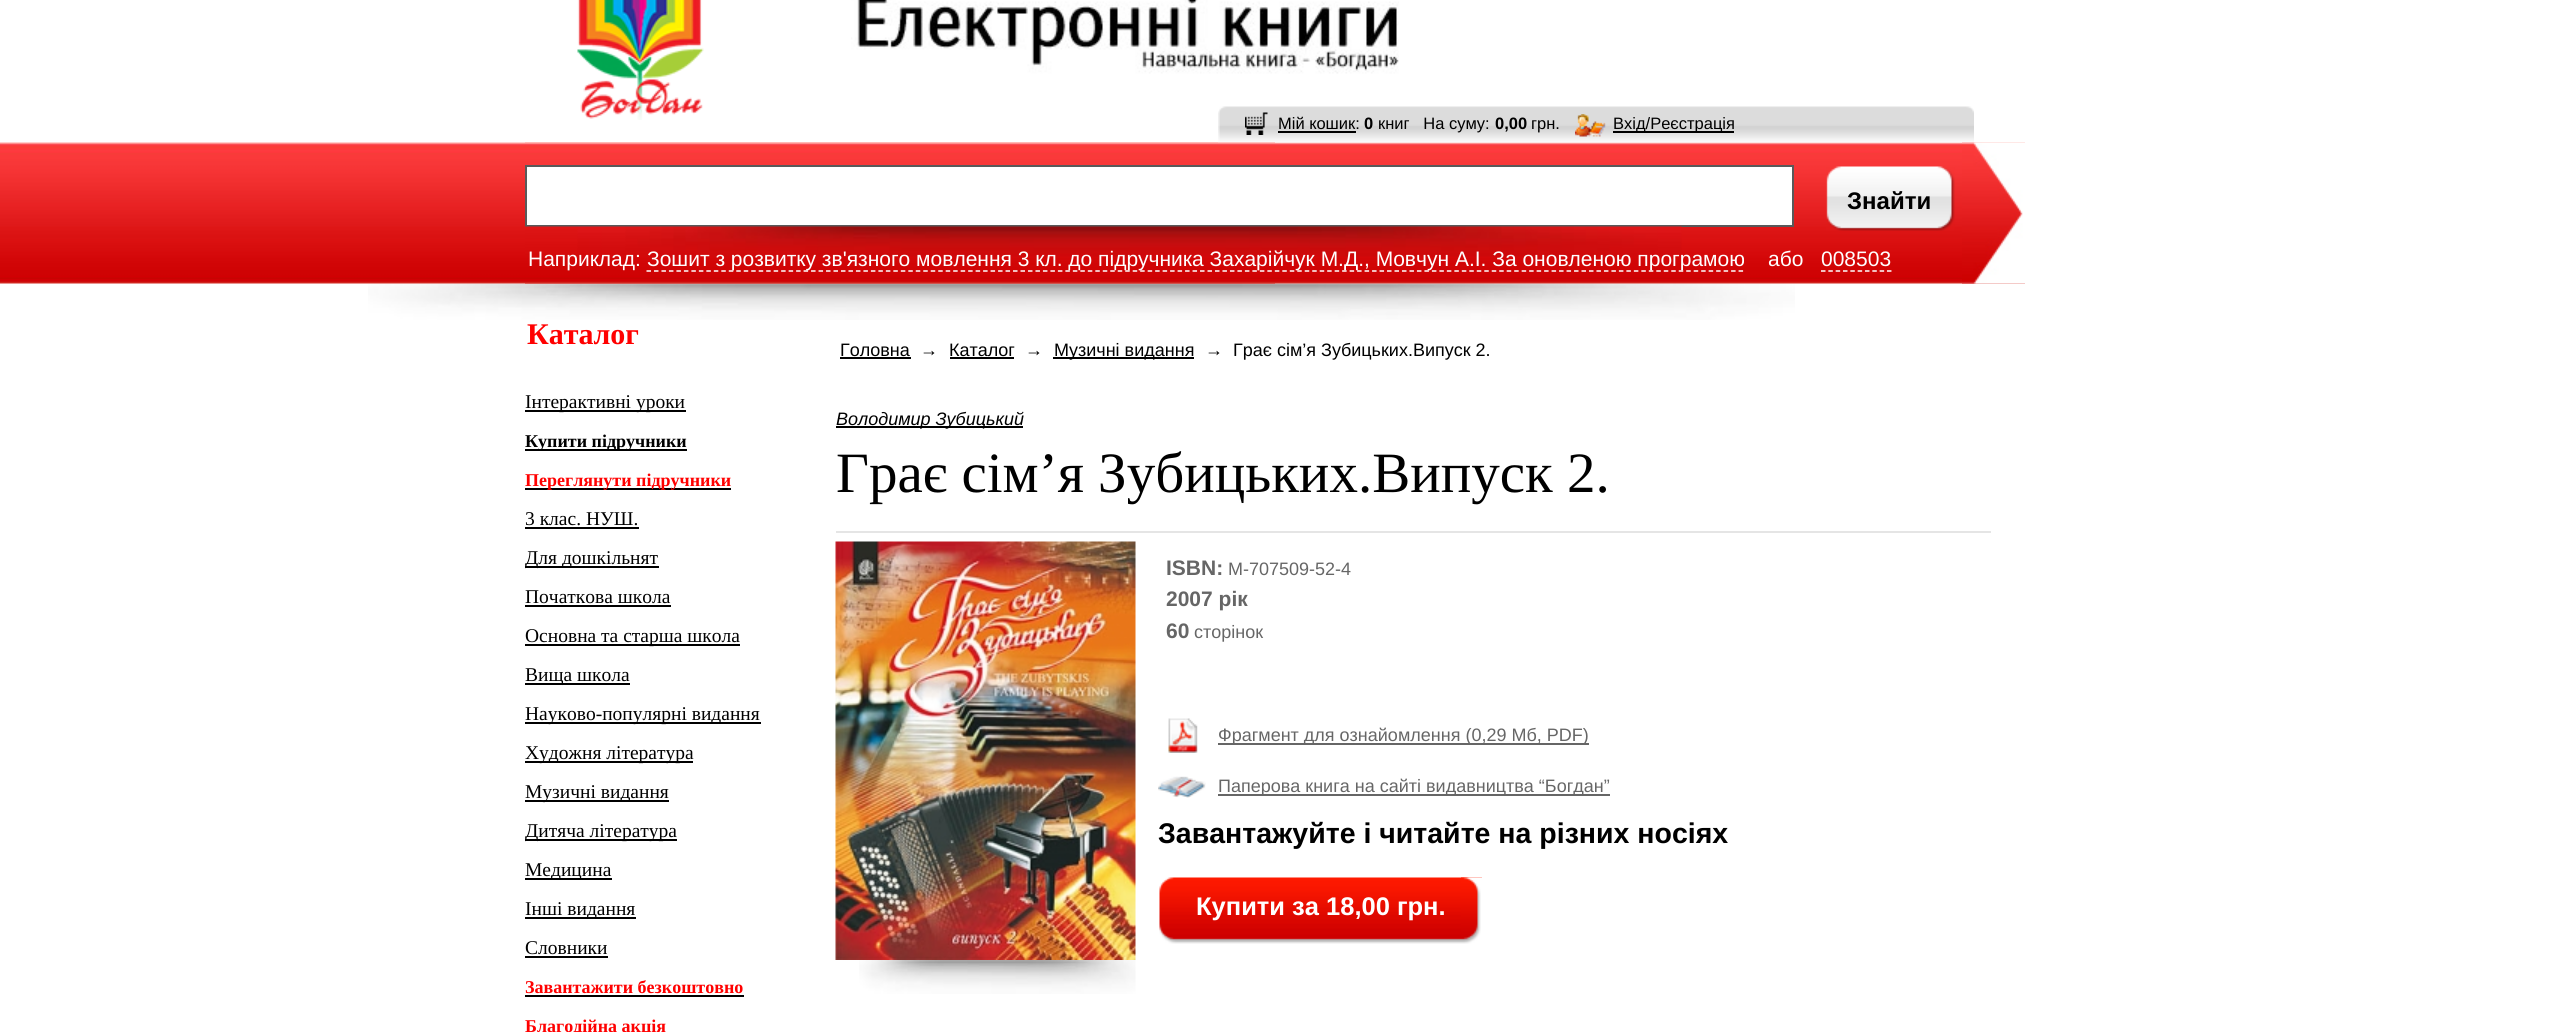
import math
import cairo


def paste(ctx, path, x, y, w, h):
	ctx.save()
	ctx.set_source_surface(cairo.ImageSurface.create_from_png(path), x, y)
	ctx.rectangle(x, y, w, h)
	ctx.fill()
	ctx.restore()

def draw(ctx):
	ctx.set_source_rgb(1, 1, 1)
	ctx.paint()
	paste(ctx, 'media/1.png', 368, 283, 1427, 37)
	paste(ctx, 'media/2.png', 577, 0, 127, 120)
	paste(ctx, 'media/3.png', 851, 0, 548, 74)
	paste(ctx, 'media/7.png', 525, 142, 1500, 142)
	paste(ctx, 'media/4.png', 1218, 106, 756, 37)
	paste(ctx, 'media/5.png', 1245, 112, 23, 23)
	ctx.select_font_face('Liberation Sans')
	ctx.set_font_size(16.5)
	ctx.set_source_rgb(0, 0, 0)
	ctx.move_to(1278, 129)
	ctx.show_text('Мій кошик:')
	ctx.rectangle(1278, 131, 78, 2)
	ctx.fill()
	ctx.select_font_face('Liberation Sans', cairo.FONT_SLANT_NORMAL, cairo.FONT_WEIGHT_BOLD)
	ctx.move_to(1364, 129)
	ctx.show_text('0')
	ctx.select_font_face('Liberation Sans')
	ctx.move_to(1378, 129)
	ctx.show_text('книг   На суму:')
	ctx.select_font_face('Liberation Sans', cairo.FONT_SLANT_NORMAL, cairo.FONT_WEIGHT_BOLD)
	ctx.move_to(1495, 129)
	ctx.show_text('0,00')
	ctx.select_font_face('Liberation Sans')
	ctx.move_to(1531, 129)
	ctx.show_text('грн.')
	paste(ctx, 'media/6.png', 1575, 114, 31, 23)
	ctx.rectangle(1613, 131, 121, 2)
	ctx.fill()
	ctx.move_to(1613, 129)
	ctx.show_text('Вхід/Реєстрація')
	paste(ctx, 'media/8.png', 0, 142, 1275, 142)
	paste(ctx, 'media/9.png', 1962, 142, 63, 142)
	ctx.set_source_rgb(1, 1, 1)
	ctx.rectangle(526, 166, 1267, 60)
	ctx.fill_preserve()
	ctx.set_source_rgb(0.349, 0.349, 0.353)
	ctx.stroke()
	paste(ctx, 'media/10.png', 1826, 166, 129, 65)
	ctx.select_font_face('Liberation Sans', cairo.FONT_SLANT_NORMAL, cairo.FONT_WEIGHT_BOLD)
	ctx.set_font_size(24)
	ctx.set_source_rgb(0, 0, 0)
	ctx.move_to(1847, 209)
	ctx.show_text('Знайти')
	paste(ctx, 'media/11.png', 525, 226, 1157, 31)
	ctx.select_font_face('Liberation Sans')
	ctx.set_font_size(21)
	ctx.set_source_rgb(1, 1, 1)
	ctx.move_to(528, 266)
	ctx.show_text('Наприклад:')
	ctx.new_path()
	ctx.move_to(646.5, 271)
	ctx.line_to(1744.5, 271)
	ctx.set_line_width(1.5)
	ctx.set_dash([4.5, 2.98])
	ctx.stroke()
	for x, y, s in [
		(647, 266, 'Зошит з розвитку зв\'язного мовлення 3 кл. до підручника Захарійчук М.Д., Мовчун А.І. За оновленою програмою'),
		(1768, 266, 'або'),
		(1821, 266, '008503'),
	]:
		ctx.move_to(x, y)
		ctx.show_text(s)
	ctx.new_path()
	ctx.move_to(1821, 271)
	ctx.line_to(1891.5, 271)
	ctx.set_dash([4.5, 2.83])
	ctx.stroke()
	ctx.select_font_face('Liberation Serif', cairo.FONT_SLANT_NORMAL, cairo.FONT_WEIGHT_BOLD)
	ctx.set_font_size(30)
	ctx.set_source_rgb(1, 0, 0)
	ctx.move_to(527, 344)
	ctx.show_text('Каталог')
	ctx.set_source_rgb(0, 0, 0)
	ctx.rectangle(525, 410, 161, 2)
	ctx.fill()
	ctx.select_font_face('Liberation Serif')
	ctx.set_font_size(19.5)
	ctx.move_to(525, 408)
	ctx.show_text('Інтерактивні уроки')
	ctx.rectangle(525, 449, 162, 2)
	ctx.fill()
	ctx.select_font_face('Liberation Serif', cairo.FONT_SLANT_NORMAL, cairo.FONT_WEIGHT_BOLD)
	ctx.set_font_size(18)
	ctx.move_to(525, 447)
	ctx.show_text('Купити підручники')
	ctx.rectangle(525, 488, 206, 2)
	ctx.fill()
	ctx.set_source_rgb(1, 0, 0)
	ctx.move_to(525, 486)
	ctx.show_text('Переглянути підручники')
	ctx.select_font_face('Liberation Serif')
	ctx.set_font_size(19.5)
	ctx.set_source_rgb(0, 0, 0)
	ctx.move_to(525, 525)
	ctx.show_text('3 клас. НУШ.')
	ctx.rectangle(525, 527, 114, 2)
	ctx.fill()
	ctx.rectangle(525, 566, 134, 2)
	ctx.fill()
	ctx.move_to(525, 564)
	ctx.show_text('Для дошкільнят')
	ctx.move_to(525, 603)
	ctx.show_text('Початкова школа')
	ctx.rectangle(525, 605, 146, 2)
	ctx.fill()
	ctx.rectangle(525, 644, 215, 2)
	ctx.fill()
	ctx.move_to(525, 642)
	ctx.show_text('Основна та старша школа')
	ctx.rectangle(525, 683, 105, 2)
	ctx.fill()
	ctx.move_to(525, 681)
	ctx.show_text('Вища школа')
	ctx.rectangle(525, 722, 236, 2)
	ctx.fill()
	ctx.move_to(525, 720)
	ctx.show_text('Науково-популярні видання')
	ctx.rectangle(525, 761, 168, 2)
	ctx.fill()
	ctx.move_to(525, 759)
	ctx.show_text('Художня література')
	ctx.rectangle(525, 800, 144, 2)
	ctx.fill()
	ctx.move_to(525, 798)
	ctx.show_text('Музичні видання')
	ctx.rectangle(525, 839, 152, 2)
	ctx.fill()
	ctx.move_to(525, 837)
	ctx.show_text('Дитяча література')
	ctx.rectangle(525, 878, 87, 2)
	ctx.fill()
	ctx.move_to(525, 876)
	ctx.show_text('Медицина')
	ctx.rectangle(525, 917, 111, 2)
	ctx.fill()
	ctx.move_to(525, 915)
	ctx.show_text('Інші видання')
	ctx.move_to(525, 954)
	ctx.show_text('Словники')
	ctx.rectangle(525, 956, 83, 2)
	ctx.fill()
	ctx.select_font_face('Liberation Serif', cairo.FONT_SLANT_NORMAL, cairo.FONT_WEIGHT_BOLD)
	ctx.set_font_size(18)
	ctx.set_source_rgb(1, 0, 0)
	ctx.move_to(525, 993)
	ctx.show_text('Завантажити безкоштовно')
	ctx.set_source_rgb(0, 0, 0)
	ctx.rectangle(525, 995, 219, 2)
	ctx.fill()
	ctx.set_source_rgb(1, 0, 0)
	ctx.move_to(525, 1032)
	ctx.show_text('Благодійна акція')
	ctx.select_font_face('Liberation Sans')
	ctx.set_source_rgb(0, 0, 0)
	ctx.move_to(840, 356)
	ctx.show_text('Головна')
	ctx.rectangle(840, 357, 71, 2)
	ctx.fill()
	ctx.move_to(920, 356)
	ctx.show_text('→')
	ctx.move_to(949, 356)
	ctx.show_text('Каталог')
	ctx.rectangle(950, 357, 64, 2)
	ctx.fill()
	ctx.move_to(1025, 356)
	ctx.show_text('→')
	ctx.rectangle(1053, 357, 141, 2)
	ctx.fill()
	for x, y, s in [
		(1054, 356, 'Музичні видання'),
		(1205, 356, '→'),
		(1233, 356, 'Грає сім’я Зубицьких.Випуск 2.'),
	]:
		ctx.move_to(x, y)
		ctx.show_text(s)
	ctx.rectangle(836, 426, 187, 2)
	ctx.fill()
	ctx.select_font_face('Liberation Sans', cairo.FONT_SLANT_ITALIC)
	ctx.move_to(836, 425)
	ctx.show_text('Володимир Зубицький')
	ctx.select_font_face('Liberation Serif')
	ctx.set_font_size(57)
	ctx.move_to(836, 492)
	ctx.show_text('Грає сім’я Зубицьких.Випуск 2.')
	ctx.set_source_rgb(0.898, 0.898, 0.898)
	ctx.rectangle(836, 531, 1155, 2)
	ctx.fill()
	paste(ctx, 'media/12.png', 859, 960, 277, 34)
	paste(ctx, 'media/13.png', 835, 541, 301, 419)
	ctx.select_font_face('Liberation Sans', cairo.FONT_SLANT_NORMAL, cairo.FONT_WEIGHT_BOLD)
	ctx.set_font_size(21)
	ctx.set_source_rgb(0.4, 0.4, 0.4)
	ctx.move_to(1166, 575)
	ctx.show_text('ISBN:')
	ctx.select_font_face('Liberation Sans')
	ctx.set_font_size(18)
	ctx.move_to(1228, 575)
	ctx.show_text('М-707509-52-4')
	ctx.select_font_face('Liberation Sans', cairo.FONT_SLANT_NORMAL, cairo.FONT_WEIGHT_BOLD)
	ctx.set_font_size(21)
	ctx.move_to(1166, 606)
	ctx.show_text('2007 рік')
	ctx.move_to(1166, 638)
	ctx.show_text('60')
	ctx.select_font_face('Liberation Sans')
	ctx.set_font_size(18)
	ctx.move_to(1194, 638)
	ctx.show_text('сторінок')
	paste(ctx, 'media/14.png', 1168, 718, 30, 35)
	ctx.rectangle(1218, 743, 371, 2)
	ctx.fill()
	ctx.move_to(1218, 741)
	ctx.show_text('Фрагмент для ознайомлення (0,29 Мб, PDF)')
	paste(ctx, 'media/15.png', 1158, 776, 48, 22)
	ctx.rectangle(1218, 794, 392, 2)
	ctx.fill()
	ctx.move_to(1218, 792)
	ctx.show_text('Паперова книга на сайті видавництва “Богдан”')
	ctx.select_font_face('Liberation Sans', cairo.FONT_SLANT_NORMAL, cairo.FONT_WEIGHT_BOLD)
	ctx.set_font_size(28.5)
	ctx.set_source_rgb(0, 0, 0)
	ctx.move_to(1158, 843)
	ctx.show_text('Завантажуйте і читайте на різних носіях')
	paste(ctx, 'media/16.png', 1159, 877, 323, 67)
	paste(ctx, 'media/17.png', 1461, 877, 21, 67)
	ctx.set_font_size(25.5)
	ctx.set_source_rgb(1, 1, 1)
	ctx.move_to(1196, 915)
	ctx.show_text('Купити за 18,00 грн.')


surface = cairo.ImageSurface(cairo.FORMAT_RGB24, 2549, 1032)
ctx = cairo.Context(surface)
options = cairo.FontOptions()
options.set_hint_metrics(cairo.HINT_METRICS_OFF)
options.set_hint_style(cairo.HINT_STYLE_NONE)
ctx.set_font_options(options)
ctx.set_miter_limit(4)
draw(ctx)
surface.write_to_png('image.png')
